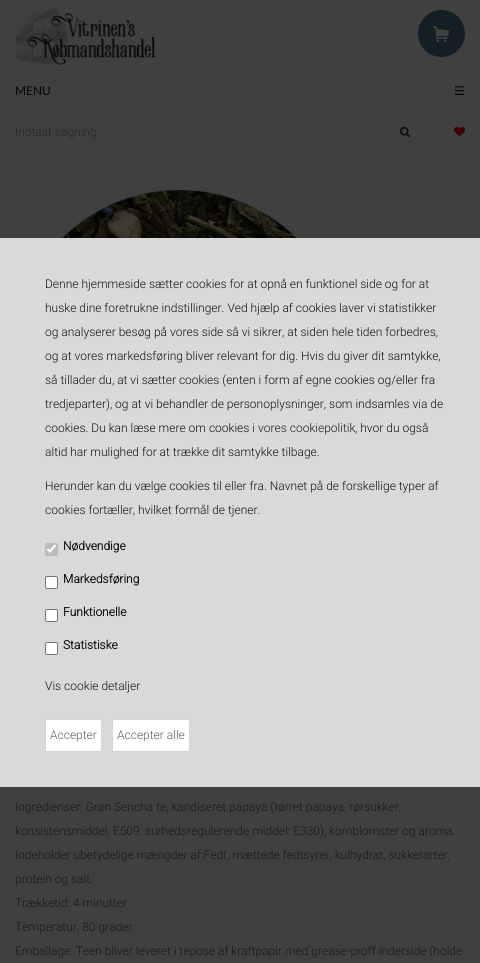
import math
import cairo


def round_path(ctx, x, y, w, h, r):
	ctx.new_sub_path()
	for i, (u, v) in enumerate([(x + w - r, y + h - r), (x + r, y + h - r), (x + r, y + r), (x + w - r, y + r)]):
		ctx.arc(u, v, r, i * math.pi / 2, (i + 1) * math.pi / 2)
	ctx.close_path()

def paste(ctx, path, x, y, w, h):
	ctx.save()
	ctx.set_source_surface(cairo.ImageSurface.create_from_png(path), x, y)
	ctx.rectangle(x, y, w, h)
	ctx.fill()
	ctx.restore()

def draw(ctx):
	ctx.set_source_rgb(0.251, 0.251, 0.251)
	ctx.paint()
	paste(ctx, 'media/1.png', 15, 6, 140, 60)
	paste(ctx, 'media/2.png', 418, 10, 47, 47)
	ctx.set_source_rgb(0.231, 0.231, 0.231)
	ctx.rectangle(0, 70, 480, 1)
	ctx.fill()
	ctx.rectangle(0, 111, 480, 1)
	ctx.fill()
	ctx.select_font_face('Lato')
	ctx.set_font_size(12)
	ctx.set_source_rgb(0.027, 0.027, 0.027)
	ctx.move_to(15, 95)
	ctx.show_text('MENU')
	ctx.select_font_face('DejaVu Sans')
	ctx.move_to(454, 95)
	ctx.show_text('☰')
	ctx.set_source_rgb(0.231, 0.231, 0.231)
	ctx.rectangle(0, 157, 480, 1)
	ctx.fill()
	ctx.select_font_face('Roboto Light')
	ctx.set_source_rgb(0.149, 0.149, 0.149)
	ctx.move_to(15, 136)
	ctx.show_text('Indtast søgning')
	paste(ctx, 'media/3.png', 400, 127, 10, 10)
	paste(ctx, 'media/4.png', 454, 127, 11, 9)
	paste(ctx, 'media/5.png', 15, 189, 334, 49)
	ctx.set_source_rgb(0.09, 0.09, 0.09)
	for x, y, s in [
		(15, 811, 'Ingredienser: Grøn Sencha te, kandiseret papaya (tørret papaya, rørsukker,'),
		(15, 835, 'konsistensmiddel: E509, surhedsregulerende middel: E330), kornblomster og aroma.'),
		(15, 859, 'Indeholder ubetydelige mængder af:Fedt, mættede fedtsyrer, kulhydrat, sukkerarter,'),
		(15, 883, 'protein og salt.'),
		(15, 907, 'Trækketid: 4 minutter'),
		(15, 931, 'Temperatur: 80 grader'),
		(15, 955, 'Emballage: Teen bliver leveret i tepose af kraftpapir med grease-proff inderside (holde'),
	]:
		ctx.move_to(x, y)
		ctx.show_text(s)
	ctx.set_source_rgb(0.851, 0.851, 0.851)
	ctx.rectangle(0, 238, 480, 549)
	ctx.fill()
	ctx.set_source_rgb(0.067, 0.067, 0.067)
	for x, y, s in [
		(45, 288, 'Denne hjemmeside sætter cookies for at opnå en funktionel side og for at'),
		(45, 312, 'huske dine foretrukne indstillinger. Ved hjælp af cookies laver vi statistikker'),
		(45, 336, 'og analyserer besøg på vores side så vi sikrer, at siden hele tiden forbedres,'),
		(45, 360, 'og at vores markedsføring bliver relevant for dig. Hvis du giver dit samtykke,'),
		(45, 384, 'så tillader du, at vi sætter cookies (enten i form af egne cookies og/eller fra'),
		(45, 408, 'tredjeparter), og at vi behandler de personoplysninger, som indsamles via de'),
		(45, 432, 'cookies. Du kan læse mere om cookies i'),
	]:
		ctx.move_to(x, y)
		ctx.show_text(s)
	ctx.set_source_rgb(0.114, 0.114, 0.106)
	ctx.move_to(258, 432)
	ctx.show_text('vores cookiepolitik')
	ctx.set_source_rgb(0.067, 0.067, 0.067)
	for x, y, s in [
		(355, 432, ', hvor du også'),
		(45, 456, 'altid har mulighed for at trække dit samtykke tilbage.'),
		(45, 490, 'Herunder kan du vælge cookies til eller fra. Navnet på de forskellige typer af'),
		(45, 514, 'cookies fortæller, hvilket formål de tjener.'),
	]:
		ctx.move_to(x, y)
		ctx.show_text(s)
	ctx.set_source_rgb(0.733, 0.733, 0.733)
	round_path(ctx, 45, 543, 13, 13, 2)
	ctx.fill()
	ctx.new_path()
	ctx.move_to(47.5, 549)
	ctx.line_to(50, 551.5)
	ctx.line_to(55.5, 545)
	ctx.set_source_rgb(1, 1, 1)
	ctx.set_line_width(2.1)
	ctx.stroke()
	ctx.select_font_face('Roboto', cairo.FONT_SLANT_NORMAL, cairo.FONT_WEIGHT_BOLD)
	ctx.set_source_rgb(0.067, 0.067, 0.067)
	ctx.move_to(63, 550)
	ctx.show_text('Nødvendige')
	ctx.set_source_rgb(1, 1, 1)
	round_path(ctx, 45.5, 576.5, 12, 12, 1.5)
	ctx.fill_preserve()
	ctx.set_source_rgb(0.463, 0.463, 0.463)
	ctx.set_line_width(1)
	ctx.stroke()
	ctx.set_source_rgb(0.067, 0.067, 0.067)
	ctx.move_to(63, 583)
	ctx.show_text('Markedsføring')
	ctx.set_source_rgb(1, 1, 1)
	round_path(ctx, 45.5, 609.5, 12, 12, 1.5)
	ctx.fill_preserve()
	ctx.set_source_rgb(0.463, 0.463, 0.463)
	ctx.stroke()
	ctx.set_source_rgb(0.067, 0.067, 0.067)
	ctx.move_to(63, 616)
	ctx.show_text('Funktionelle')
	ctx.set_source_rgb(1, 1, 1)
	round_path(ctx, 45.5, 642.5, 12, 12, 1.5)
	ctx.fill_preserve()
	ctx.set_source_rgb(0.463, 0.463, 0.463)
	ctx.stroke()
	ctx.set_source_rgb(0.067, 0.067, 0.067)
	ctx.move_to(63, 649)
	ctx.show_text('Statistiske')
	ctx.select_font_face('Roboto Light')
	ctx.move_to(45, 690)
	ctx.show_text('Vis cookie detaljer')
	ctx.set_source_rgb(1, 1, 1)
	ctx.rectangle(45.5, 719.5, 56, 32)
	ctx.fill_preserve()
	ctx.set_source_rgb(0.831, 0.831, 0.831)
	ctx.stroke()
	ctx.set_source_rgb(0.365, 0.365, 0.365)
	ctx.move_to(50, 739)
	ctx.show_text('Accepter')
	ctx.set_source_rgb(1, 1, 1)
	ctx.rectangle(112.5, 719.5, 77, 32)
	ctx.fill_preserve()
	ctx.set_source_rgb(0.831, 0.831, 0.831)
	ctx.stroke()
	ctx.set_source_rgb(0.365, 0.365, 0.365)
	ctx.move_to(117, 739)
	ctx.show_text('Accepter alle')


surface = cairo.ImageSurface(cairo.FORMAT_RGB24, 480, 963)
ctx = cairo.Context(surface)
options = cairo.FontOptions()
options.set_hint_metrics(cairo.HINT_METRICS_OFF)
options.set_hint_style(cairo.HINT_STYLE_NONE)
ctx.set_font_options(options)
ctx.set_miter_limit(4)
draw(ctx)
surface.write_to_png('image.png')
